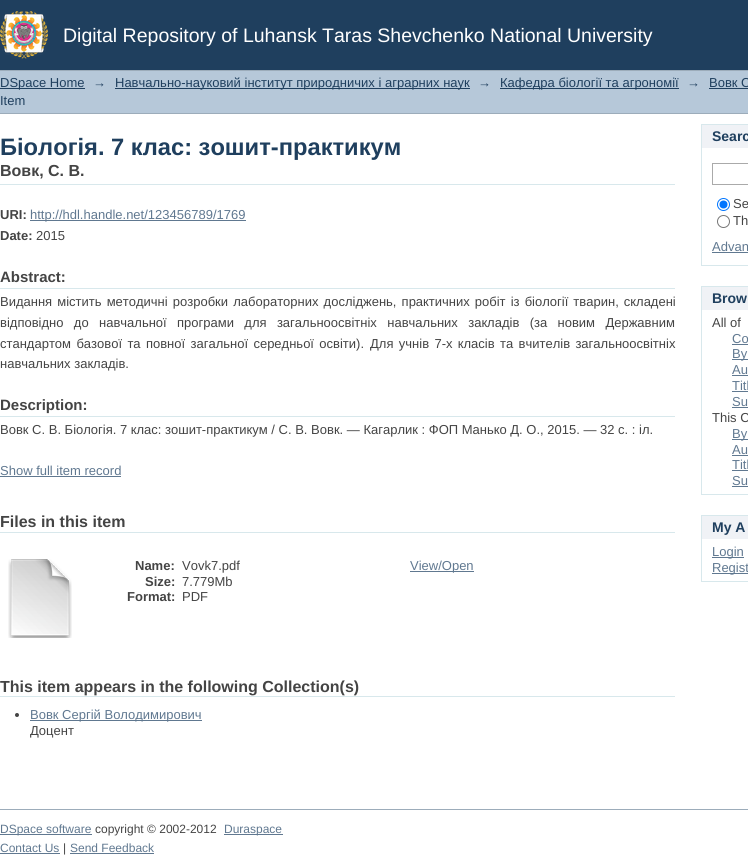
import math
import cairo


def write_spaced(ctx, x, y, s, letter, word):
	ctx.move_to(x, y)
	for ch in s:
		ctx.show_text(ch)
		ctx.rel_move_to(letter + word * (ch == ' '), 0)

def paste(ctx, path, x, y, w, h):
	ctx.save()
	ctx.set_source_surface(cairo.ImageSurface.create_from_png(path), x, y)
	ctx.rectangle(x, y, w, h)
	ctx.fill()
	ctx.restore()

def draw(ctx):
	ctx.set_source_rgb(1, 1, 1)
	ctx.paint()
	ctx.set_source_rgb(0.122, 0.247, 0.369)
	ctx.rectangle(0, 0, 748, 70)
	ctx.fill()
	paste(ctx, 'media/1.png', 0, 11, 48, 48)
	ctx.select_font_face('Liberation Sans')
	ctx.set_font_size(19.5)
	ctx.set_source_rgb(1, 1, 1)
	ctx.move_to(63, 42)
	ctx.show_text('Digital Repository of Luhansk Taras Shevchenko National University')
	ctx.set_source_rgb(0.714, 0.784, 0.851)
	ctx.rectangle(0, 71, 748, 42)
	ctx.fill()
	ctx.set_source_rgb(0.612, 0.675, 0.729)
	ctx.rectangle(0, 70, 748, 1)
	ctx.rectangle(0, 113, 748, 1)
	ctx.fill()
	ctx.set_source_rgb(0.122, 0.247, 0.369)
	ctx.rectangle(0, 88, 85, 1)
	ctx.fill()
	ctx.set_font_size(13)
	ctx.move_to(0, 87)
	ctx.show_text('DSpace Home')
	ctx.move_to(93, 87)
	ctx.show_text('→')
	ctx.rectangle(115, 88, 355, 1)
	ctx.fill()
	ctx.move_to(115, 87)
	ctx.show_text('Навчально-науковий інститут природничих і аграрних наук')
	ctx.move_to(478, 87)
	ctx.show_text('→')
	ctx.rectangle(500, 88, 179, 1)
	ctx.fill()
	for x, y, s in [
		(500, 87, 'Кафедра біології та агрономії'),
		(687, 87, '→'),
		(709, 87, 'Вовк С'),
	]:
		ctx.move_to(x, y)
		ctx.show_text(s)
	ctx.rectangle(709, 88, 39, 1)
	ctx.fill()
	ctx.move_to(0, 105)
	ctx.show_text('Item')
	ctx.select_font_face('Liberation Sans', cairo.FONT_SLANT_NORMAL, cairo.FONT_WEIGHT_BOLD)
	ctx.set_font_size(23.7)
	ctx.move_to(0, 155)
	ctx.show_text('Біологія. 7 клас: зошит-практикум')
	ctx.set_source_rgb(0.847, 0.91, 0.922)
	ctx.rectangle(0, 184, 675, 1)
	ctx.fill()
	ctx.set_font_size(16)
	ctx.set_source_rgb(0.267, 0.267, 0.267)
	ctx.move_to(0, 176)
	ctx.show_text('Вовк, С. В.')
	ctx.set_font_size(13)
	ctx.move_to(0, 219)
	ctx.show_text('URI:')
	ctx.set_source_rgb(0.376, 0.471, 0.565)
	ctx.rectangle(30, 220, 216, 1)
	ctx.fill()
	ctx.select_font_face('Liberation Sans')
	ctx.move_to(30, 219)
	ctx.show_text('http://hdl.handle.net/123456789/1769')
	ctx.select_font_face('Liberation Sans', cairo.FONT_SLANT_NORMAL, cairo.FONT_WEIGHT_BOLD)
	ctx.set_source_rgb(0.267, 0.267, 0.267)
	ctx.move_to(0, 240)
	ctx.show_text('Date:')
	ctx.select_font_face('Liberation Sans')
	ctx.move_to(36, 240)
	ctx.show_text('2015')
	ctx.set_source_rgb(0.847, 0.91, 0.922)
	ctx.rectangle(0, 288, 675, 1)
	ctx.fill()
	ctx.select_font_face('Liberation Sans', cairo.FONT_SLANT_NORMAL, cairo.FONT_WEIGHT_BOLD)
	ctx.set_font_size(15)
	ctx.set_source_rgb(0.267, 0.267, 0.267)
	ctx.move_to(0, 282)
	ctx.show_text('Abstract:')
	ctx.select_font_face('Liberation Sans')
	ctx.set_font_size(13)
	write_spaced(ctx, 0, 306, 'Видання містить методичні розробки лабораторних досліджень, практичних робіт із біології тварин, складені', 0, 1.5)
	write_spaced(ctx, 0, 327, 'відповідно до навчальної програми для загальноосвітніх навчальних закладів (за новим Державним', 0, 6.75)
	write_spaced(ctx, 0, 348, 'стандартом базової та повної загальної середньої освіти).', 0, 1.75)
	write_spaced(ctx, 370, 348, 'Для учнів 7-х класів та вчителів загальноосвітніх', 0, 1.75)
	ctx.move_to(0, 368)
	ctx.show_text('навчальних закладів.')
	ctx.set_source_rgb(0.847, 0.91, 0.922)
	ctx.rectangle(0, 416, 675, 1)
	ctx.fill()
	ctx.select_font_face('Liberation Sans', cairo.FONT_SLANT_NORMAL, cairo.FONT_WEIGHT_BOLD)
	ctx.set_font_size(15)
	ctx.set_source_rgb(0.267, 0.267, 0.267)
	ctx.move_to(0, 410)
	ctx.show_text('Description:')
	ctx.select_font_face('Liberation Sans')
	ctx.set_font_size(13)
	ctx.move_to(0, 434)
	ctx.show_text('Вовк С. В. Біологія. 7 клас: зошит-практикум / С. В. Вовк. — Кагарлик : ФОП Манько Д. О., 2015. — 32 с. : іл.')
	ctx.set_source_rgb(0.376, 0.471, 0.565)
	ctx.move_to(0, 475)
	ctx.show_text('Show full item record')
	ctx.rectangle(0, 476, 121, 1)
	ctx.fill()
	ctx.set_source_rgb(0.847, 0.91, 0.922)
	ctx.rectangle(0, 532, 675, 1)
	ctx.fill()
	ctx.select_font_face('Liberation Sans', cairo.FONT_SLANT_NORMAL, cairo.FONT_WEIGHT_BOLD)
	ctx.set_font_size(16)
	ctx.set_source_rgb(0.267, 0.267, 0.267)
	ctx.move_to(0, 527)
	ctx.show_text('Files in this item')
	paste(ctx, 'media/2.png', 8, 559, 64, 79)
	ctx.set_font_size(13)
	ctx.move_to(135, 570)
	ctx.show_text('Name:')
	ctx.select_font_face('Liberation Sans')
	ctx.move_to(182, 570)
	ctx.show_text('Vovk7.pdf')
	ctx.select_font_face('Liberation Sans', cairo.FONT_SLANT_NORMAL, cairo.FONT_WEIGHT_BOLD)
	ctx.move_to(145, 586)
	ctx.show_text('Size:')
	ctx.select_font_face('Liberation Sans')
	ctx.move_to(182, 586)
	ctx.show_text('7.779Mb')
	ctx.select_font_face('Liberation Sans', cairo.FONT_SLANT_NORMAL, cairo.FONT_WEIGHT_BOLD)
	ctx.move_to(127, 601)
	ctx.show_text('Format:')
	ctx.select_font_face('Liberation Sans')
	ctx.move_to(182, 601)
	ctx.show_text('PDF')
	ctx.set_source_rgb(0.376, 0.471, 0.565)
	ctx.rectangle(410, 571, 64, 1)
	ctx.fill()
	ctx.move_to(410, 570)
	ctx.show_text('View/Open')
	ctx.set_source_rgb(0.847, 0.91, 0.922)
	ctx.rectangle(0, 696, 675, 1)
	ctx.fill()
	ctx.select_font_face('Liberation Sans', cairo.FONT_SLANT_NORMAL, cairo.FONT_WEIGHT_BOLD)
	ctx.set_font_size(16)
	ctx.set_source_rgb(0.267, 0.267, 0.267)
	ctx.move_to(0, 692)
	ctx.show_text('This item appears in the following Collection(s)')
	ctx.new_path()
	ctx.arc(17, 715, 2, 0, 2 * math.pi)
	ctx.fill()
	ctx.set_source_rgb(0.376, 0.471, 0.565)
	ctx.rectangle(30, 720, 172, 1)
	ctx.fill()
	ctx.select_font_face('Liberation Sans')
	ctx.set_font_size(13)
	ctx.move_to(30, 719)
	ctx.show_text('Вовк Сергій Володимирович')
	ctx.set_source_rgb(0.267, 0.267, 0.267)
	ctx.move_to(30, 735)
	ctx.show_text('Доцент')
	ctx.set_source_rgb(0.941, 0.949, 0.961)
	ctx.rectangle(702, 125, 46, 23)
	ctx.fill()
	ctx.set_source_rgb(0.847, 0.91, 0.922)
	ctx.rectangle(701, 124, 47, 1)
	ctx.rectangle(701, 124, 1, 24)
	ctx.fill()
	ctx.select_font_face('Liberation Sans', cairo.FONT_SLANT_NORMAL, cairo.FONT_WEIGHT_BOLD)
	ctx.set_font_size(14)
	ctx.set_source_rgb(0.122, 0.247, 0.369)
	ctx.move_to(712, 141)
	ctx.show_text('Searc')
	ctx.set_source_rgb(0.847, 0.91, 0.922)
	ctx.rectangle(701, 265, 47, 1)
	ctx.fill()
	ctx.rectangle(701, 148, 1, 118)
	ctx.fill()
	ctx.rectangle(712.5, 163.5, 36, 21)
	ctx.set_source_rgb(0.667, 0.667, 0.667)
	ctx.set_line_width(1)
	ctx.stroke()
	ctx.arc(723.5, 204.5, 6, 0, 2 * math.pi)
	ctx.set_source_rgb(0, 0.459, 1)
	ctx.stroke()
	ctx.arc(723.5, 204.5, 4, 0, 2 * math.pi)
	ctx.fill()
	ctx.select_font_face('Liberation Sans')
	ctx.set_font_size(13)
	ctx.set_source_rgb(0.267, 0.267, 0.267)
	ctx.move_to(733, 208)
	ctx.show_text('Se')
	ctx.new_path()
	ctx.arc(723.5, 221.5, 6, 0, 2 * math.pi)
	ctx.set_source_rgb(0.463, 0.463, 0.463)
	ctx.stroke()
	ctx.set_source_rgb(0.267, 0.267, 0.267)
	ctx.move_to(733, 225)
	ctx.show_text('Th')
	ctx.set_source_rgb(0.376, 0.471, 0.565)
	ctx.move_to(712, 251)
	ctx.show_text('Advan')
	ctx.rectangle(712, 252, 36, 1)
	ctx.fill()
	ctx.set_source_rgb(0.941, 0.949, 0.961)
	ctx.rectangle(702, 287, 46, 23)
	ctx.fill()
	ctx.set_source_rgb(0.847, 0.91, 0.922)
	ctx.rectangle(701, 286, 47, 1)
	ctx.rectangle(701, 286, 1, 24)
	ctx.fill()
	ctx.select_font_face('Liberation Sans', cairo.FONT_SLANT_NORMAL, cairo.FONT_WEIGHT_BOLD)
	ctx.set_font_size(14)
	ctx.set_source_rgb(0.122, 0.247, 0.369)
	ctx.move_to(712, 303)
	ctx.show_text('Brow')
	ctx.set_source_rgb(0.847, 0.91, 0.922)
	ctx.rectangle(701, 494, 47, 1)
	ctx.fill()
	ctx.rectangle(701, 310, 1, 185)
	ctx.fill()
	ctx.select_font_face('Liberation Sans')
	ctx.set_font_size(13)
	ctx.set_source_rgb(0.267, 0.267, 0.267)
	ctx.move_to(712, 327)
	ctx.show_text('All of')
	ctx.set_source_rgb(0.376, 0.471, 0.565)
	ctx.move_to(732, 343)
	ctx.show_text('Co')
	ctx.rectangle(732, 344, 16, 1)
	ctx.fill()
	ctx.rectangle(732, 359, 16, 1)
	ctx.fill()
	ctx.move_to(732, 358)
	ctx.show_text('By')
	ctx.move_to(732, 374)
	ctx.show_text('Au')
	ctx.rectangle(732, 375, 16, 1)
	ctx.fill()
	ctx.move_to(732, 390)
	ctx.show_text('Titl')
	ctx.rectangle(732, 391, 16, 1)
	ctx.fill()
	ctx.move_to(732, 406)
	ctx.show_text('Su')
	ctx.rectangle(732, 407, 16, 1)
	ctx.fill()
	ctx.set_source_rgb(0.267, 0.267, 0.267)
	ctx.move_to(712, 422)
	ctx.show_text('This C')
	ctx.set_source_rgb(0.376, 0.471, 0.565)
	ctx.rectangle(732, 439, 16, 1)
	ctx.fill()
	ctx.move_to(732, 438)
	ctx.show_text('By')
	ctx.move_to(732, 454)
	ctx.show_text('Au')
	ctx.rectangle(732, 455, 16, 1)
	ctx.fill()
	ctx.move_to(732, 469)
	ctx.show_text('Titl')
	ctx.rectangle(732, 470, 16, 1)
	ctx.fill()
	ctx.move_to(732, 485)
	ctx.show_text('Su')
	ctx.rectangle(732, 486, 16, 1)
	ctx.fill()
	ctx.set_source_rgb(0.941, 0.949, 0.961)
	ctx.rectangle(702, 516, 46, 23)
	ctx.fill()
	ctx.set_source_rgb(0.847, 0.91, 0.922)
	ctx.rectangle(701, 515, 47, 1)
	ctx.rectangle(701, 515, 1, 24)
	ctx.fill()
	ctx.select_font_face('Liberation Sans', cairo.FONT_SLANT_NORMAL, cairo.FONT_WEIGHT_BOLD)
	ctx.set_font_size(14)
	ctx.set_source_rgb(0.122, 0.247, 0.369)
	ctx.move_to(712, 532)
	ctx.show_text('My A')
	ctx.set_source_rgb(0.847, 0.91, 0.922)
	ctx.rectangle(701, 581, 47, 1)
	ctx.rectangle(701, 539, 1, 43)
	ctx.fill()
	ctx.set_source_rgb(0.376, 0.471, 0.565)
	ctx.rectangle(712, 557, 32, 1)
	ctx.fill()
	ctx.select_font_face('Liberation Sans')
	ctx.set_font_size(13)
	ctx.move_to(712, 556)
	ctx.show_text('Login')
	ctx.rectangle(712, 573, 36, 1)
	ctx.fill()
	ctx.move_to(712, 572)
	ctx.show_text('Regist')
	ctx.set_source_rgb(0.612, 0.675, 0.729)
	ctx.rectangle(0, 809, 748, 1)
	ctx.fill()
	ctx.set_source_rgb(0.376, 0.471, 0.565)
	ctx.rectangle(0, 834, 92, 1)
	ctx.fill()
	ctx.set_font_size(12)
	ctx.move_to(0, 833)
	ctx.show_text('DSpace software')
	ctx.set_source_rgb(0.267, 0.267, 0.267)
	ctx.move_to(95, 833)
	ctx.show_text('copyright © 2002-2012')
	ctx.set_source_rgb(0.376, 0.471, 0.565)
	ctx.rectangle(224, 834, 59, 1)
	ctx.fill()
	ctx.move_to(224, 833)
	ctx.show_text('Duraspace')
	ctx.move_to(0, 852)
	ctx.show_text('Contact Us')
	ctx.rectangle(0, 853, 60, 1)
	ctx.fill()
	ctx.set_source_rgb(0.267, 0.267, 0.267)
	ctx.move_to(63, 852)
	ctx.show_text('|')
	ctx.set_source_rgb(0.376, 0.471, 0.565)
	ctx.move_to(70, 852)
	ctx.show_text('Send Feedback')
	ctx.rectangle(70, 853, 84, 1)
	ctx.fill()


surface = cairo.ImageSurface(cairo.FORMAT_RGB24, 748, 864)
ctx = cairo.Context(surface)
options = cairo.FontOptions()
options.set_hint_metrics(cairo.HINT_METRICS_OFF)
options.set_hint_style(cairo.HINT_STYLE_NONE)
ctx.set_font_options(options)
ctx.set_miter_limit(4)
draw(ctx)
surface.write_to_png('image.png')
